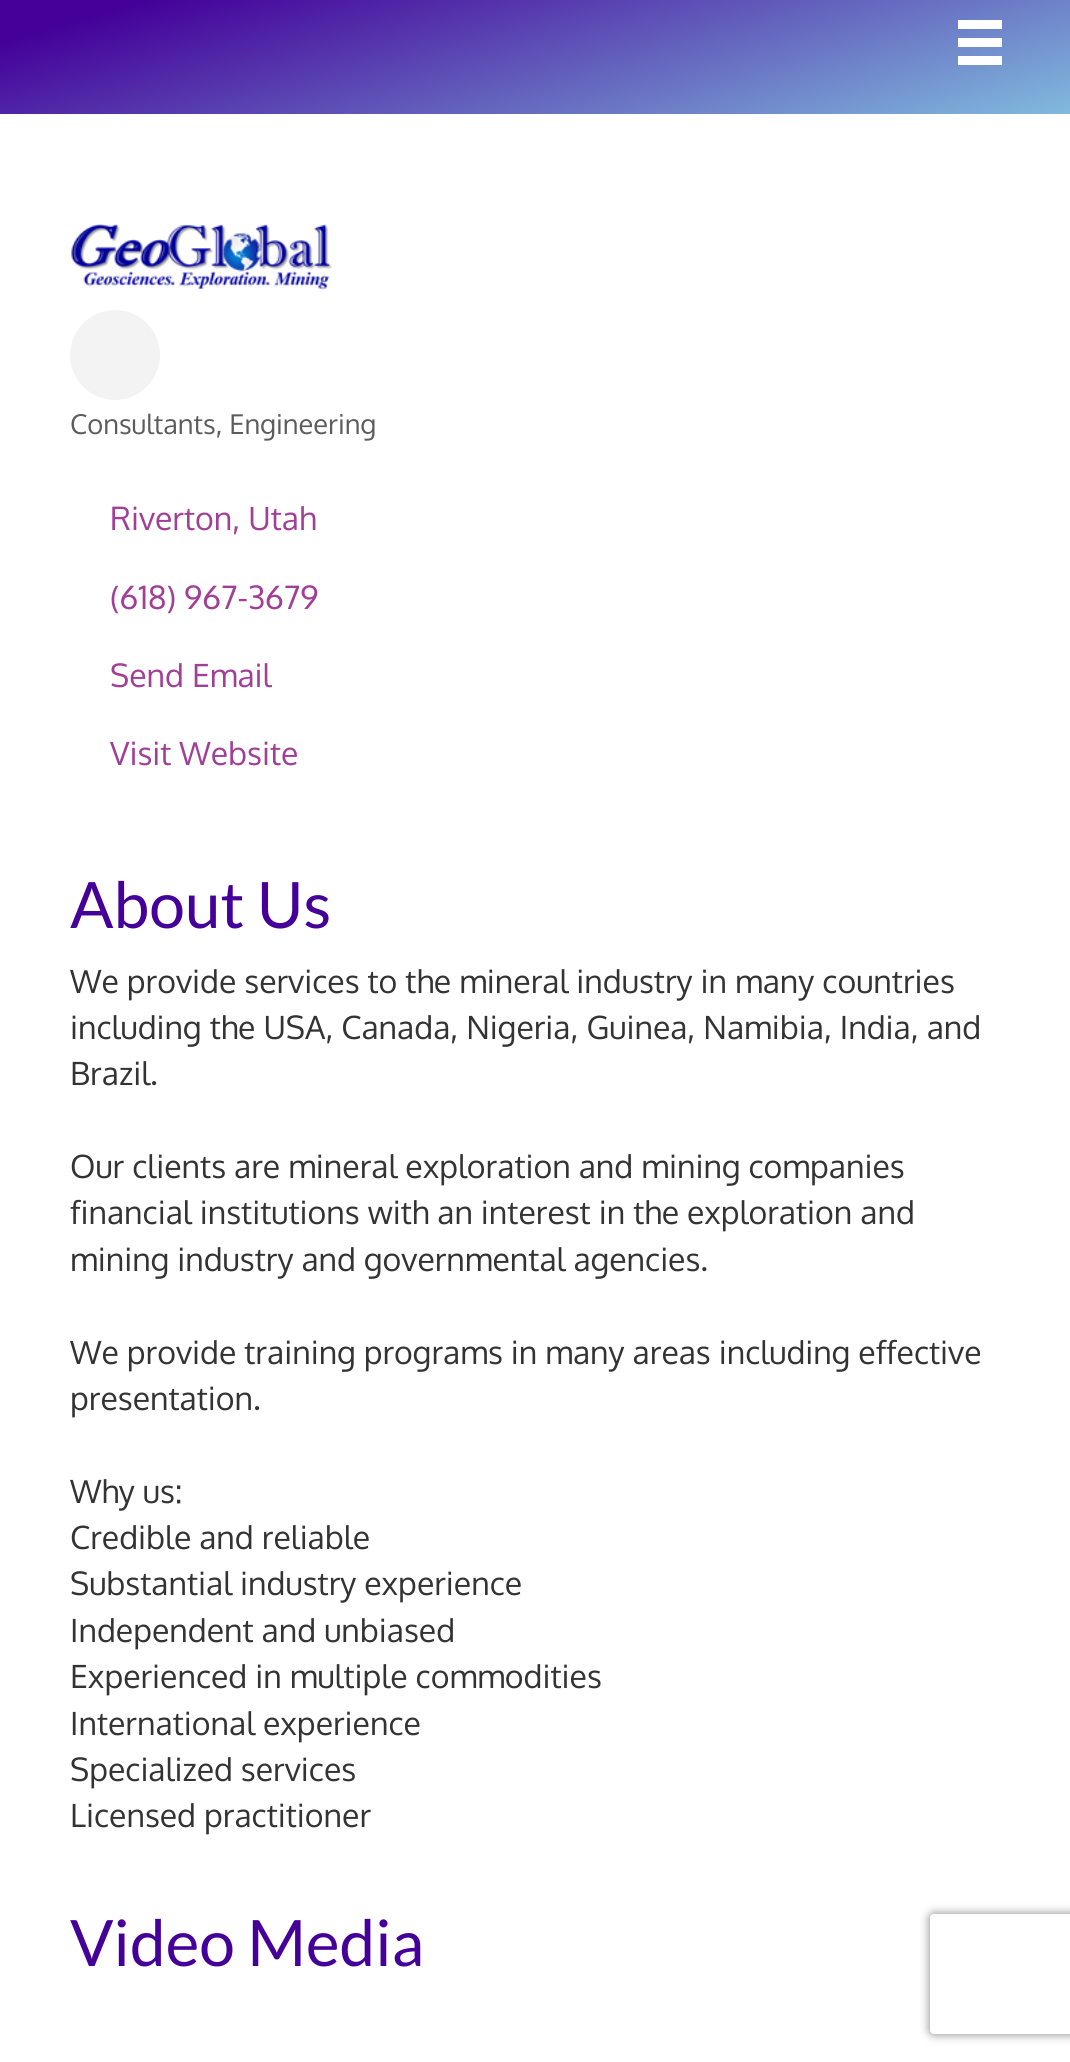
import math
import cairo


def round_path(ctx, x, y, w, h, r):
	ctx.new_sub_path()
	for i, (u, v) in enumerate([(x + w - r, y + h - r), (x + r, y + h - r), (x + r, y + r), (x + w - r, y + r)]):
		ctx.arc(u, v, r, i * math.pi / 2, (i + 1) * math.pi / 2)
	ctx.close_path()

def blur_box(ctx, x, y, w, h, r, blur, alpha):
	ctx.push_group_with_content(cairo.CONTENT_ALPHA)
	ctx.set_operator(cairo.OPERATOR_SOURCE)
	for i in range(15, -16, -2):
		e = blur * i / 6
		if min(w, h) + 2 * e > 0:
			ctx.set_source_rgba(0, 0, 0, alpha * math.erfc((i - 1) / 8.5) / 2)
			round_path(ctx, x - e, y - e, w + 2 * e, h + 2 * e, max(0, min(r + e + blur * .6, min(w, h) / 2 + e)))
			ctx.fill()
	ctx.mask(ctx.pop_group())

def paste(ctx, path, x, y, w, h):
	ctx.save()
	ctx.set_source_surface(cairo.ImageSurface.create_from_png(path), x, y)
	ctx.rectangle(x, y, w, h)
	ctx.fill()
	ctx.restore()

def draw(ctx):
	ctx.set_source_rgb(1, 1, 1)
	ctx.paint()
	gradient = cairo.LinearGradient(638, 238, 432, -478)
	gradient.add_color_stop_rgba(0, 0.502, 0.729, 0.867, 1)
	gradient.add_color_stop_rgba(0.49, 0.267, 0, 0.6, 1)
	ctx.set_source(gradient)
	ctx.rectangle(0, 0, 1070, 114)
	ctx.fill()
	ctx.set_source_rgb(1, 1, 1)
	ctx.rectangle(958, 20, 44, 9)
	ctx.rectangle(958, 38, 44, 9)
	ctx.rectangle(958, 56, 44, 9)
	ctx.fill()
	paste(ctx, 'media/1.png', 71, 224, 261, 66)
	ctx.set_source_rgb(0.953, 0.953, 0.953)
	ctx.arc(115, 355, 45, 0, 2 * math.pi)
	ctx.fill()
	ctx.select_font_face('Oxygen')
	ctx.set_font_size(27.25)
	ctx.set_source_rgb(0.361, 0.361, 0.361)
	ctx.move_to(70, 434)
	ctx.show_text('Consultants, Engineering')
	ctx.set_font_size(32)
	ctx.set_source_rgb(0.631, 0.247, 0.592)
	for x, y, s in [
		(110, 530, 'Riverton, Utah'),
		(110, 609, '(618) 967-3679'),
		(110, 687, 'Send Email'),
		(110, 765, 'Visit Website'),
	]:
		ctx.move_to(x, y)
		ctx.show_text(s)
	ctx.select_font_face('Lato')
	ctx.set_font_size(64)
	ctx.set_source_rgb(0.267, 0, 0.6)
	ctx.move_to(70, 928)
	ctx.show_text('About Us')
	ctx.select_font_face('Oxygen')
	ctx.set_font_size(32)
	ctx.set_source_rgb(0.2, 0.2, 0.2)
	for x, y, s in [
		(70, 993, 'We provide services to the mineral industry in many countries'),
		(70, 1039, 'including the USA, Canada, Nigeria, Guinea, Namibia, India, and'),
		(70, 1085, 'Brazil.'),
		(70, 1178, 'Our clients are mineral exploration and mining companies'),
		(70, 1224, 'financial institutions with an interest in the exploration and'),
		(70, 1271, 'mining industry and governmental agencies.'),
		(70, 1364, 'We provide training programs in many areas including effective'),
		(70, 1410, 'presentation.'),
		(70, 1503, 'Why us:'),
		(70, 1549, 'Credible and reliable'),
		(70, 1595, 'Substantial industry experience'),
		(70, 1642, 'Independent and unbiased'),
		(70, 1688, 'Experienced in multiple commodities'),
		(70, 1735, 'International experience'),
		(70, 1781, 'Specialized services'),
		(70, 1827, 'Licensed practitioner'),
	]:
		ctx.move_to(x, y)
		ctx.show_text(s)
	ctx.select_font_face('Lato')
	ctx.set_font_size(64)
	ctx.set_source_rgb(0.267, 0, 0.6)
	ctx.move_to(70, 1966)
	ctx.show_text('Video Media')
	ctx.save()
	ctx.set_fill_rule(cairo.FILL_RULE_EVEN_ODD)
	ctx.new_path()
	ctx.move_to(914, 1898)
	ctx.line_to(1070, 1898)
	ctx.line_to(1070, 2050)
	ctx.line_to(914, 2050)
	ctx.close_path()
	ctx.move_to(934, 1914)
	ctx.line_to(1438, 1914)
	ctx.curve_to(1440, 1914, 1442, 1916, 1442, 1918)
	ctx.line_to(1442, 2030)
	ctx.curve_to(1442, 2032, 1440, 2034, 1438, 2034)
	ctx.line_to(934, 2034)
	ctx.curve_to(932, 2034, 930, 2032, 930, 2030)
	ctx.line_to(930, 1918)
	ctx.curve_to(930, 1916, 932, 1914, 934, 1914)
	ctx.close_path()
	ctx.clip()
	ctx.set_source_rgb(0.502, 0.502, 0.502)
	blur_box(ctx, 930, 1914, 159, 120, 4, 5, 1)
	ctx.restore()


surface = cairo.ImageSurface(cairo.FORMAT_RGB24, 1070, 2062)
ctx = cairo.Context(surface)
options = cairo.FontOptions()
options.set_hint_metrics(cairo.HINT_METRICS_OFF)
options.set_hint_style(cairo.HINT_STYLE_NONE)
ctx.set_font_options(options)
ctx.set_miter_limit(4)
draw(ctx)
surface.write_to_png('image.png')
